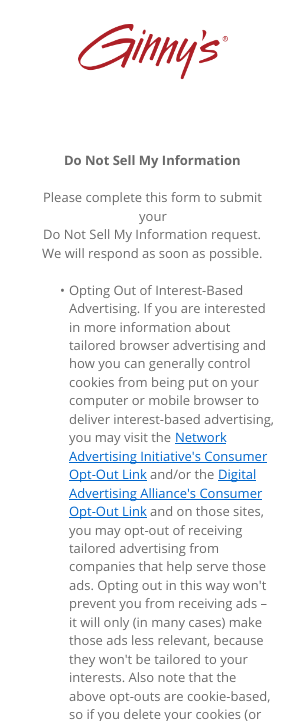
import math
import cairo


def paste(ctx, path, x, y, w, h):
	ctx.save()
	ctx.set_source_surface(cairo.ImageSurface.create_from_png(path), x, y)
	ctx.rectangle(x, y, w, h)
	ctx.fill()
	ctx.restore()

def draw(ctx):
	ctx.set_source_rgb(1, 1, 1)
	ctx.paint()
	paste(ctx, 'media/1.png', 78, 24, 150, 56)
	ctx.select_font_face('Open Sans', cairo.FONT_SLANT_NORMAL, cairo.FONT_WEIGHT_BOLD)
	ctx.set_font_size(13)
	ctx.set_source_rgb(0.412, 0.412, 0.412)
	ctx.move_to(64, 165)
	ctx.show_text('Do Not Sell My Information')
	ctx.select_font_face('Open Sans')
	for x, y, s in [
		(43, 202, 'Please complete this form to submit'),
		(139, 221, 'your'),
		(43, 239, 'Do Not Sell My Information request.'),
		(42, 258, 'We will respond as soon as possible.'),
		(60, 295, '•'),
		(69, 295, 'Opting Out of Interest-Based'),
		(69, 313, 'Advertising. If you are interested'),
		(69, 332, 'in more information about'),
		(69, 350, 'tailored browser advertising and'),
		(69, 368, 'how you can generally control'),
		(69, 387, 'cookies from being put on your'),
		(69, 405, 'computer or mobile browser to'),
		(69, 424, 'deliver interest-based advertising,'),
		(69, 442, 'you may visit the'),
	]:
		ctx.move_to(x, y)
		ctx.show_text(s)
	ctx.set_source_rgb(0, 0.4, 0.8)
	ctx.move_to(175, 442)
	ctx.show_text('Network')
	ctx.rectangle(175, 443, 51, 1)
	ctx.fill()
	ctx.rectangle(69, 462, 198, 1)
	ctx.fill()
	ctx.move_to(69, 461)
	ctx.show_text('Advertising Initiative\'s Consumer')
	ctx.rectangle(69, 480, 78, 1)
	ctx.fill()
	ctx.move_to(69, 479)
	ctx.show_text('Opt-Out Link')
	ctx.set_source_rgb(0.412, 0.412, 0.412)
	ctx.move_to(150, 479)
	ctx.show_text('and/or the')
	ctx.set_source_rgb(0, 0.4, 0.8)
	ctx.rectangle(218, 480, 38, 1)
	ctx.fill()
	ctx.move_to(218, 479)
	ctx.show_text('Digital')
	ctx.rectangle(69, 499, 193, 1)
	ctx.fill()
	ctx.move_to(69, 498)
	ctx.show_text('Advertising Alliance\'s Consumer')
	ctx.rectangle(69, 517, 78, 1)
	ctx.fill()
	ctx.move_to(69, 516)
	ctx.show_text('Opt-Out Link')
	ctx.set_source_rgb(0.412, 0.412, 0.412)
	for x, y, s in [
		(150, 516, 'and on those sites,'),
		(69, 535, 'you may opt-out of receiving'),
		(69, 553, 'tailored advertising from'),
		(69, 571, 'companies that help serve those'),
		(69, 590, 'ads. Opting out in this way won\'t'),
		(69, 608, 'prevent you from receiving ads –'),
		(69, 627, 'it will only (in many cases) make'),
		(69, 645, 'those ads less relevant, because'),
		(69, 664, 'they won\'t be tailored to your'),
		(69, 682, 'interests. Also note that the'),
		(69, 701, 'above opt-outs are cookie-based,'),
		(69, 719, 'so if you delete your cookies (or'),
	]:
		ctx.move_to(x, y)
		ctx.show_text(s)


surface = cairo.ImageSurface(cairo.FORMAT_RGB24, 305, 721)
ctx = cairo.Context(surface)
options = cairo.FontOptions()
options.set_hint_metrics(cairo.HINT_METRICS_OFF)
options.set_hint_style(cairo.HINT_STYLE_NONE)
ctx.set_font_options(options)
ctx.set_miter_limit(4)
draw(ctx)
surface.write_to_png('image.png')
